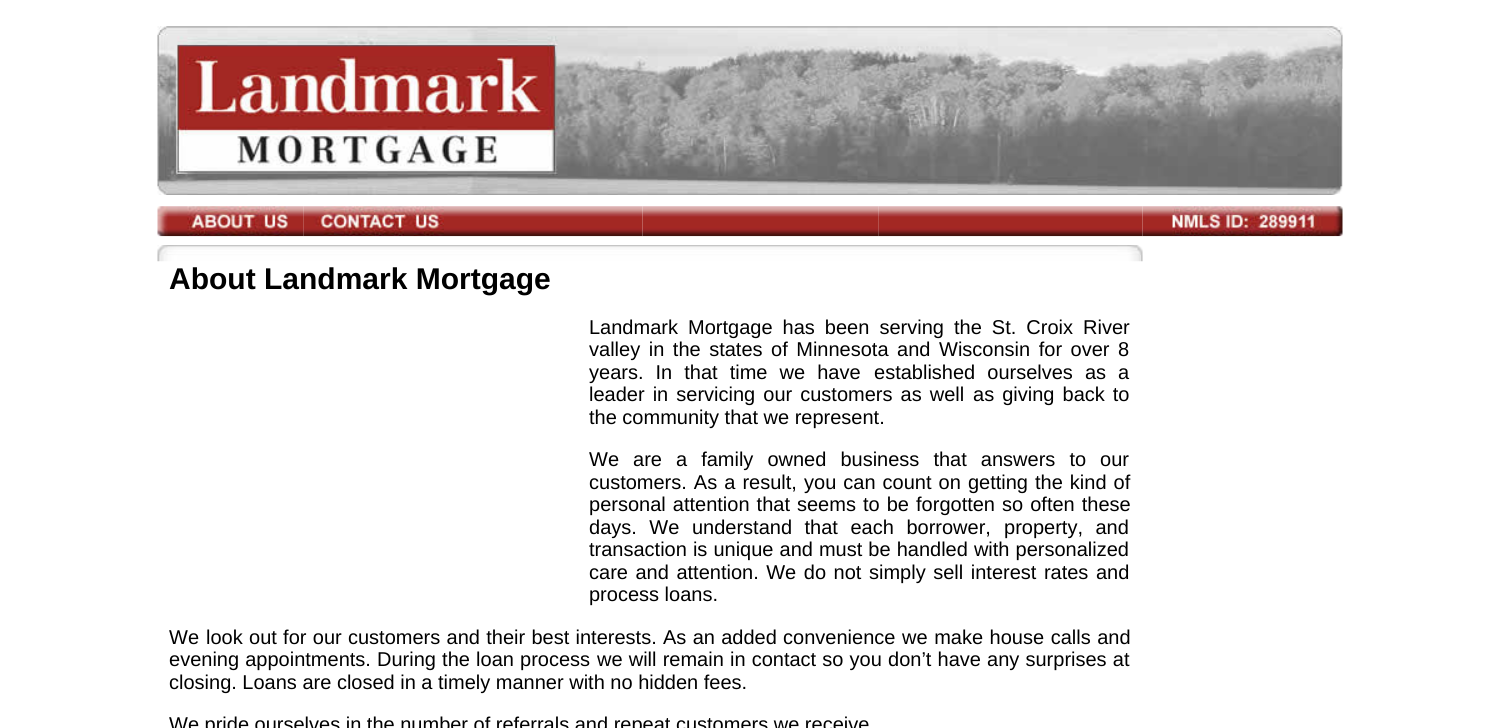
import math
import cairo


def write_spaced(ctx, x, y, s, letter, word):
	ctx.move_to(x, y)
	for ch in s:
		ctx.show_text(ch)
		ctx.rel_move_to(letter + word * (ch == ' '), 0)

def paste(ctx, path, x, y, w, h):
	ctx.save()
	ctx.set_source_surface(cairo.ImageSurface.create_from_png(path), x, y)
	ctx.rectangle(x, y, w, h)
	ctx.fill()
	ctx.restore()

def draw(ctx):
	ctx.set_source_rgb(1, 1, 1)
	ctx.paint()
	paste(ctx, 'media/1.png', 157, 26, 1186, 169)
	paste(ctx, 'media/2.png', 1342, 68, 1, 119)
	paste(ctx, 'media/3.png', 157, 206, 147, 31)
	paste(ctx, 'media/4.png', 303, 206, 152, 31)
	paste(ctx, 'media/5.png', 455, 206, 188, 31)
	paste(ctx, 'media/6.png', 642, 206, 237, 31)
	paste(ctx, 'media/7.png', 878, 206, 265, 31)
	paste(ctx, 'media/8.png', 1142, 206, 201, 31)
	ctx.set_source_rgba(0.996, 0.996, 0.996, 0.75)
	ctx.rectangle(159, 236, 1183, 1)
	ctx.fill()
	paste(ctx, 'media/9.png', 157, 245, 986, 17)
	ctx.select_font_face('Liberation Sans', cairo.FONT_SLANT_NORMAL, cairo.FONT_WEIGHT_BOLD)
	ctx.set_font_size(30)
	ctx.set_source_rgb(0, 0, 0)
	ctx.move_to(169, 289)
	ctx.show_text('About Landmark Mortgage')
	ctx.select_font_face('Liberation Sans')
	ctx.set_font_size(20)
	ctx.move_to(589, 334)
	ctx.show_text('Landmark')
	write_spaced(ctx, 688, 334, 'Mortgage has been serving the St. Croix River', 0, 4.5)
	write_spaced(ctx, 589, 356, 'valley in the states', 0, 3)
	write_spaced(ctx, 771, 356, 'of Minnesota and Wisconsin for over 8', 0, 3)
	write_spaced(ctx, 589, 379, 'years. In that time we have', 0, 6.5)
	write_spaced(ctx, 874, 379, 'established ourselves as a', 0, 6.5)
	write_spaced(ctx, 589, 401, 'leader in servicing our customers as well', 0, 2.5)
	write_spaced(ctx, 973, 401, 'as giving back to', 0, 2.5)
	ctx.move_to(589, 424)
	ctx.show_text('the community that we represent.')
	ctx.move_to(589, 466)
	ctx.show_text('We')
	write_spaced(ctx, 633, 466, 'are a family owned business that answers to our', 0, 8.5)
	for x, y, s in [
		(589, 489, 'customers. As a result,'),
		(804, 489, 'you can count on getting the kind of'),
		(589, 511, 'personal attention that seems'),
		(863, 511, 'to be forgotten so often these'),
	]:
		write_spaced(ctx, x, y, s, 0, 1.5)
	write_spaced(ctx, 589, 534, 'days. We understand that each borrower,', 0, 7)
	write_spaced(ctx, 1004, 534, 'property, and', 0, 7)
	write_spaced(ctx, 589, 556, 'transaction is unique and must be handled with personalized', 0, 0.5)
	write_spaced(ctx, 589, 579, 'care and attention. We do not simply sell interest rates and', 0, 2)
	ctx.move_to(589, 601)
	ctx.show_text('process loans.')
	ctx.move_to(169, 644)
	ctx.show_text('We')
	write_spaced(ctx, 206, 644, 'look out for our customers and their best interests. As an added convenience', 0, 0.75)
	write_spaced(ctx, 902, 644, 'we make house calls and', 0, 1)
	write_spaced(ctx, 169, 666, 'evening appointments. During the loan process', 0, 0.6)
	write_spaced(ctx, 597, 666, 'we will remain in contact so you don’t have any surprises at', 0, 0.6)
	ctx.move_to(169, 689)
	ctx.show_text('closing. Loans are closed in a timely manner with no hidden fees.')
	ctx.move_to(169, 731)
	ctx.show_text('We pride ourselves in the number of referrals and repeat customers we receive')


surface = cairo.ImageSurface(cairo.FORMAT_RGB24, 1493, 728)
ctx = cairo.Context(surface)
options = cairo.FontOptions()
options.set_hint_metrics(cairo.HINT_METRICS_OFF)
options.set_hint_style(cairo.HINT_STYLE_NONE)
ctx.set_font_options(options)
ctx.set_miter_limit(4)
draw(ctx)
surface.write_to_png('image.png')
